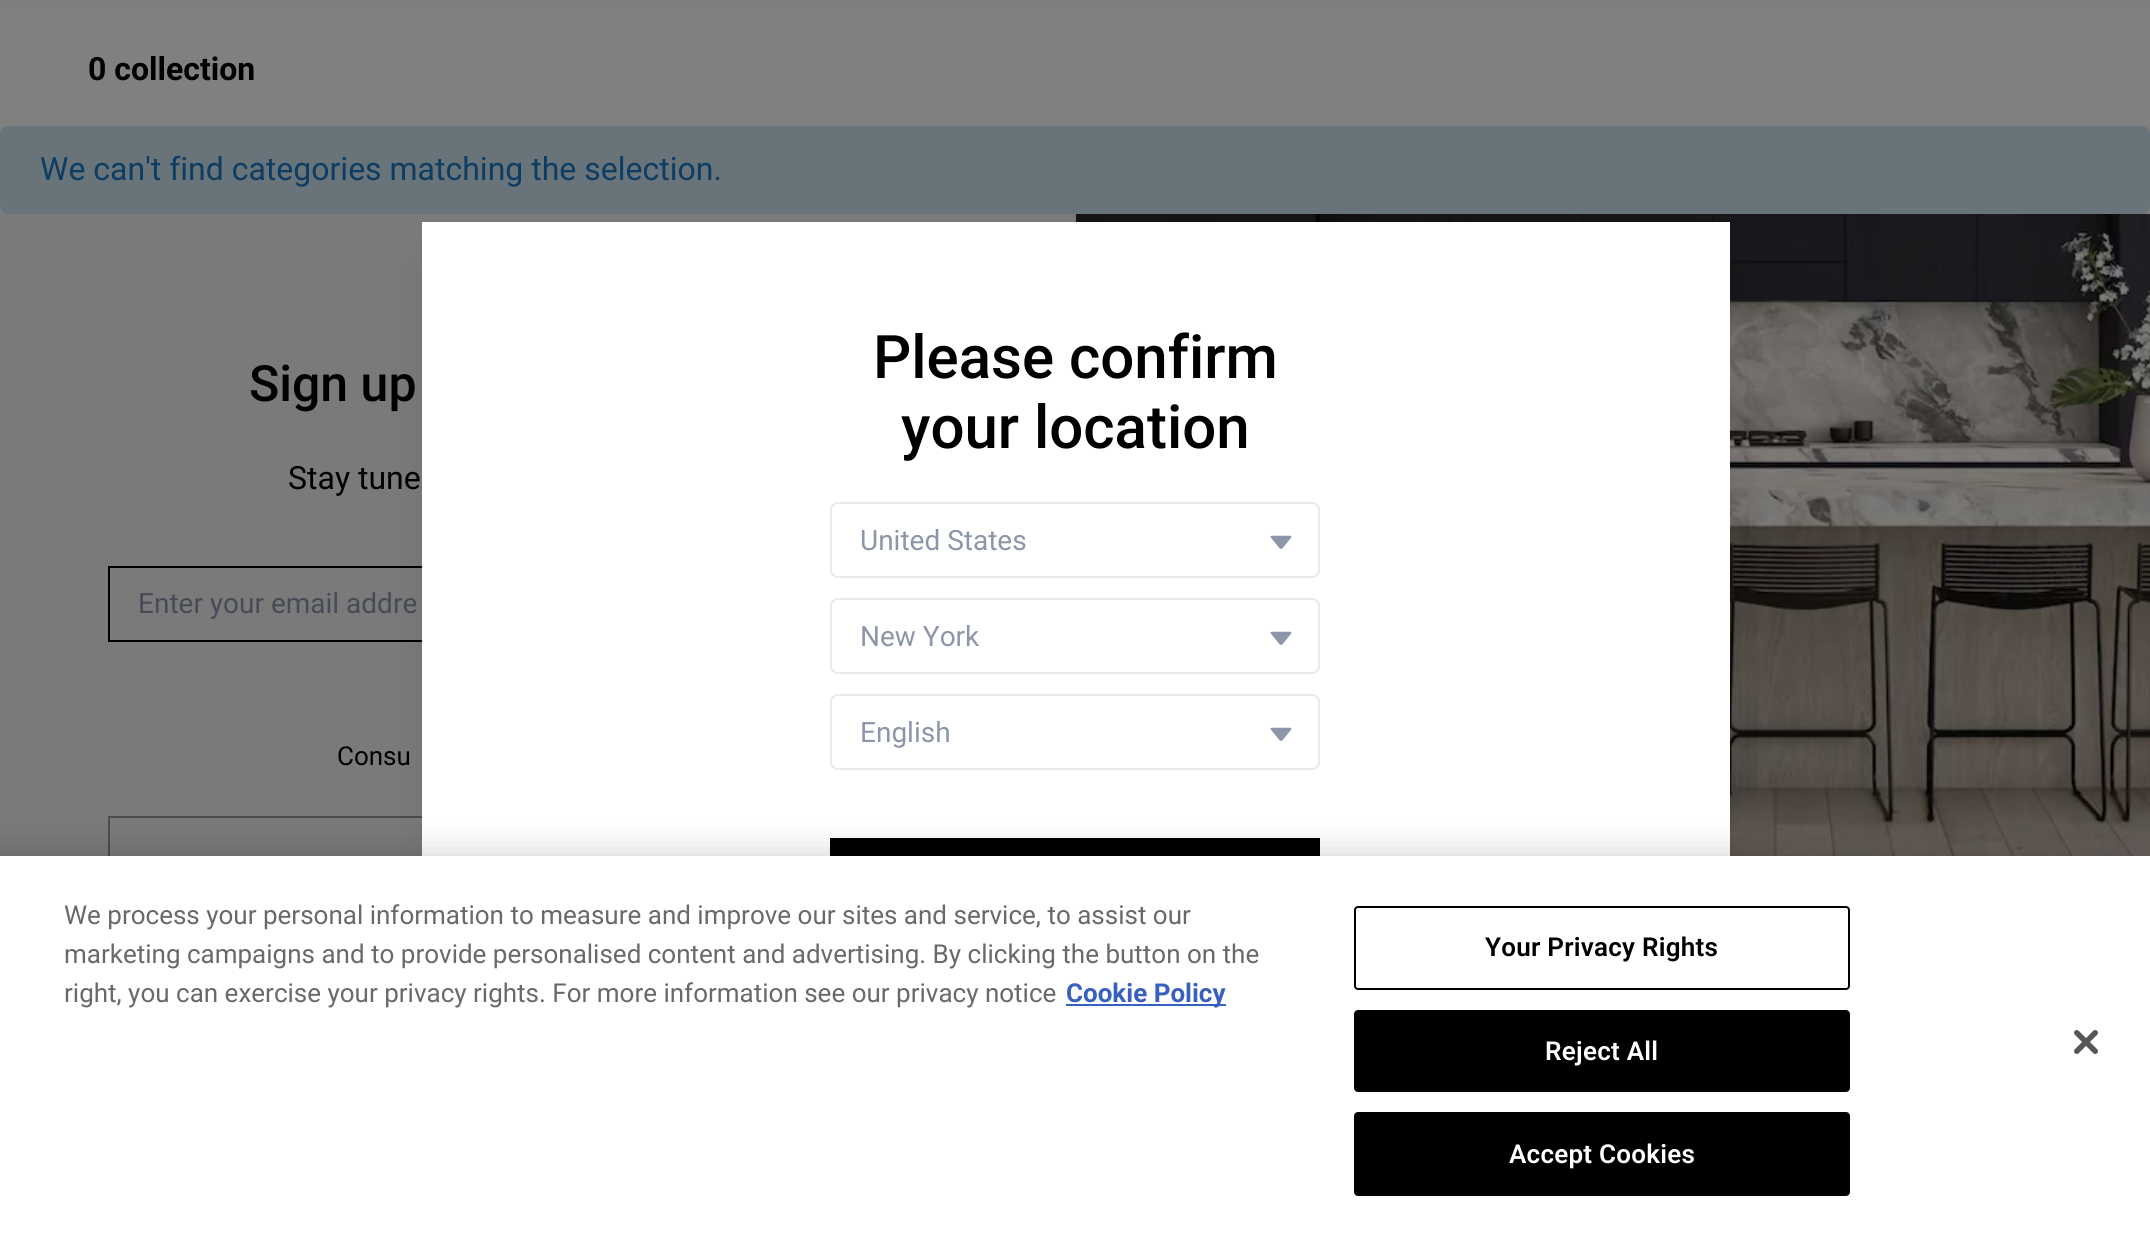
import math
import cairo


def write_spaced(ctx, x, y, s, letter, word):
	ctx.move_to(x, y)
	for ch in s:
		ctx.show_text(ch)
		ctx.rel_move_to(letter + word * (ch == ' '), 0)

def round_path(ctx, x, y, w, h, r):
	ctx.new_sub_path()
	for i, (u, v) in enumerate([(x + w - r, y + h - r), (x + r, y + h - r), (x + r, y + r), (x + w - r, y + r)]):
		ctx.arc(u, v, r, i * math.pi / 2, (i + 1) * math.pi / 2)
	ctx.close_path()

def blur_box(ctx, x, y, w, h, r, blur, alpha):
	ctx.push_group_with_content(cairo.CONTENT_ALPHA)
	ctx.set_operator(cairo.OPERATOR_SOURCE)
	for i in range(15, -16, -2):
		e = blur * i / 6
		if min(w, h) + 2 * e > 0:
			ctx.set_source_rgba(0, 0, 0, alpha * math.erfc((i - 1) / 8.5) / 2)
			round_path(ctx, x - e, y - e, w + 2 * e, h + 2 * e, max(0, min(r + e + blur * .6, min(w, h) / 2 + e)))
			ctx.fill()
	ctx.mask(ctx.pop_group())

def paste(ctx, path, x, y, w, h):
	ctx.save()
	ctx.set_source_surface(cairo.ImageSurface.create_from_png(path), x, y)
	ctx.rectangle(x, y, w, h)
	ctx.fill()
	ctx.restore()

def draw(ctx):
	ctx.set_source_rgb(0.502, 0.502, 0.502)
	ctx.paint()
	ctx.set_source_rgb(0.49, 0.494, 0.494)
	ctx.rectangle(0, 0, 2150, 6)
	ctx.fill()
	ctx.select_font_face('Roboto', cairo.FONT_SLANT_NORMAL, cairo.FONT_WEIGHT_BOLD)
	ctx.set_font_size(32)
	ctx.set_source_rgb(0, 0, 0)
	ctx.move_to(88, 80)
	ctx.show_text('0 collection')
	ctx.set_source_rgb(0.412, 0.451, 0.478)
	round_path(ctx, 0, 126, 2150, 88, 8)
	ctx.fill()
	ctx.select_font_face('Roboto')
	ctx.set_source_rgb(0.051, 0.239, 0.384)
	ctx.move_to(40, 180)
	ctx.show_text('We can\'t find categories matching the selection.')
	ctx.set_source_rgb(0.478, 0.478, 0.478)
	ctx.rectangle(0, 214, 1076, 642)
	ctx.fill()
	ctx.select_font_face('Roboto Medium')
	ctx.set_font_size(50)
	ctx.set_source_rgb(0, 0, 0)
	ctx.move_to(249, 401)
	ctx.show_text('Sign up')
	ctx.select_font_face('Roboto')
	ctx.set_font_size(32)
	ctx.move_to(288, 489)
	ctx.show_text('Stay tune')
	ctx.rectangle(109, 567, 858, 74)
	ctx.stroke()
	ctx.set_font_size(28)
	ctx.set_source_rgb(0.275, 0.294, 0.333)
	ctx.move_to(138, 613)
	ctx.show_text('Enter your email addre')
	ctx.set_font_size(26)
	ctx.set_source_rgb(0, 0, 0)
	ctx.move_to(337, 765)
	ctx.show_text('Consu')
	ctx.rectangle(109, 817, 858, 74)
	ctx.set_source_rgb(0.298, 0.298, 0.298)
	ctx.stroke()
	paste(ctx, 'media/1.png', 1076, 214, 1074, 642)
	ctx.set_source_rgb(0, 0, 0)
	blur_box(ctx, 432, 272, 1288, 772, 0, 25, 0.1)
	ctx.set_source_rgb(1, 1, 1)
	ctx.rectangle(422, 222, 1308, 634)
	ctx.fill()
	ctx.select_font_face('Roboto Medium')
	ctx.set_font_size(60)
	ctx.set_source_rgb(0, 0, 0)
	ctx.move_to(873, 378)
	ctx.show_text('Please confirm')
	ctx.move_to(901, 448)
	ctx.show_text('your location')
	paste(ctx, 'media/2.png', 1270, 535, 22, 14)
	round_path(ctx, 831, 503, 488, 74, 7)
	ctx.set_source_rgb(0.914, 0.914, 0.922)
	ctx.stroke()
	ctx.select_font_face('Roboto')
	ctx.set_font_size(28)
	ctx.set_source_rgb(0.549, 0.588, 0.663)
	ctx.move_to(860, 550)
	ctx.show_text('United States')
	paste(ctx, 'media/2.png', 1270, 631, 22, 14)
	round_path(ctx, 831, 599, 488, 74, 7)
	ctx.set_source_rgb(0.914, 0.914, 0.922)
	ctx.stroke()
	ctx.set_source_rgb(0.549, 0.588, 0.663)
	ctx.move_to(860, 646)
	ctx.show_text('New York')
	paste(ctx, 'media/2.png', 1270, 727, 22, 14)
	round_path(ctx, 831, 695, 488, 74, 7)
	ctx.set_source_rgb(0.914, 0.914, 0.922)
	ctx.stroke()
	ctx.set_source_rgb(0.549, 0.588, 0.663)
	ctx.move_to(860, 742)
	ctx.show_text('English')
	ctx.set_source_rgb(0, 0, 0)
	ctx.rectangle(830, 838, 490, 18)
	ctx.fill()
	ctx.set_source_rgb(0, 0, 0)
	blur_box(ctx, 0, 856, 2150, 380, 0, 18, 0.2)
	ctx.set_source_rgb(1, 1, 1)
	ctx.rectangle(0, 856, 2150, 380)
	ctx.fill()
	ctx.set_font_size(26)
	ctx.set_source_rgb(0.412, 0.412, 0.412)
	for x, y, s in [
		(64, 924, 'We process your personal information to measure and improve our sites and service, to assist our'),
		(64, 963, 'marketing campaigns and to provide personalised content and advertising. By clicking the button on the'),
		(64, 1002, 'right, you can exercise your privacy rights. For more information see our privacy notice'),
	]:
		ctx.move_to(x, y)
		ctx.show_text(s)
	ctx.set_source_rgb(0.22, 0.376, 0.745)
	ctx.rectangle(1066, 1004, 160, 2)
	ctx.fill()
	ctx.select_font_face('Roboto', cairo.FONT_SLANT_NORMAL, cairo.FONT_WEIGHT_BOLD)
	ctx.move_to(1066, 1002)
	ctx.show_text('Cookie Policy')
	round_path(ctx, 1355, 907, 494, 82, 3)
	ctx.set_source_rgb(0, 0, 0)
	ctx.stroke()
	ctx.select_font_face('Roboto SemiBold')
	write_spaced(ctx, 1485, 956, 'Your Privacy Rights', 0.25, 0)
	round_path(ctx, 1355, 1011, 494, 80, 3)
	ctx.fill_preserve()
	ctx.stroke()
	ctx.set_source_rgb(1, 1, 1)
	write_spaced(ctx, 1545, 1060, 'Reject All', 0.25, 0)
	ctx.set_source_rgb(0, 0, 0)
	round_path(ctx, 1355, 1113, 494, 82, 3)
	ctx.fill_preserve()
	ctx.stroke()
	ctx.set_source_rgb(1, 1, 1)
	write_spaced(ctx, 1509, 1163, 'Accept Cookies', 0.25, 0)
	paste(ctx, 'media/3.png', 2074, 1030, 24, 24)


surface = cairo.ImageSurface(cairo.FORMAT_RGB24, 2150, 1236)
ctx = cairo.Context(surface)
options = cairo.FontOptions()
options.set_hint_metrics(cairo.HINT_METRICS_OFF)
options.set_hint_style(cairo.HINT_STYLE_NONE)
ctx.set_font_options(options)
ctx.set_miter_limit(4)
draw(ctx)
surface.write_to_png('image.png')
